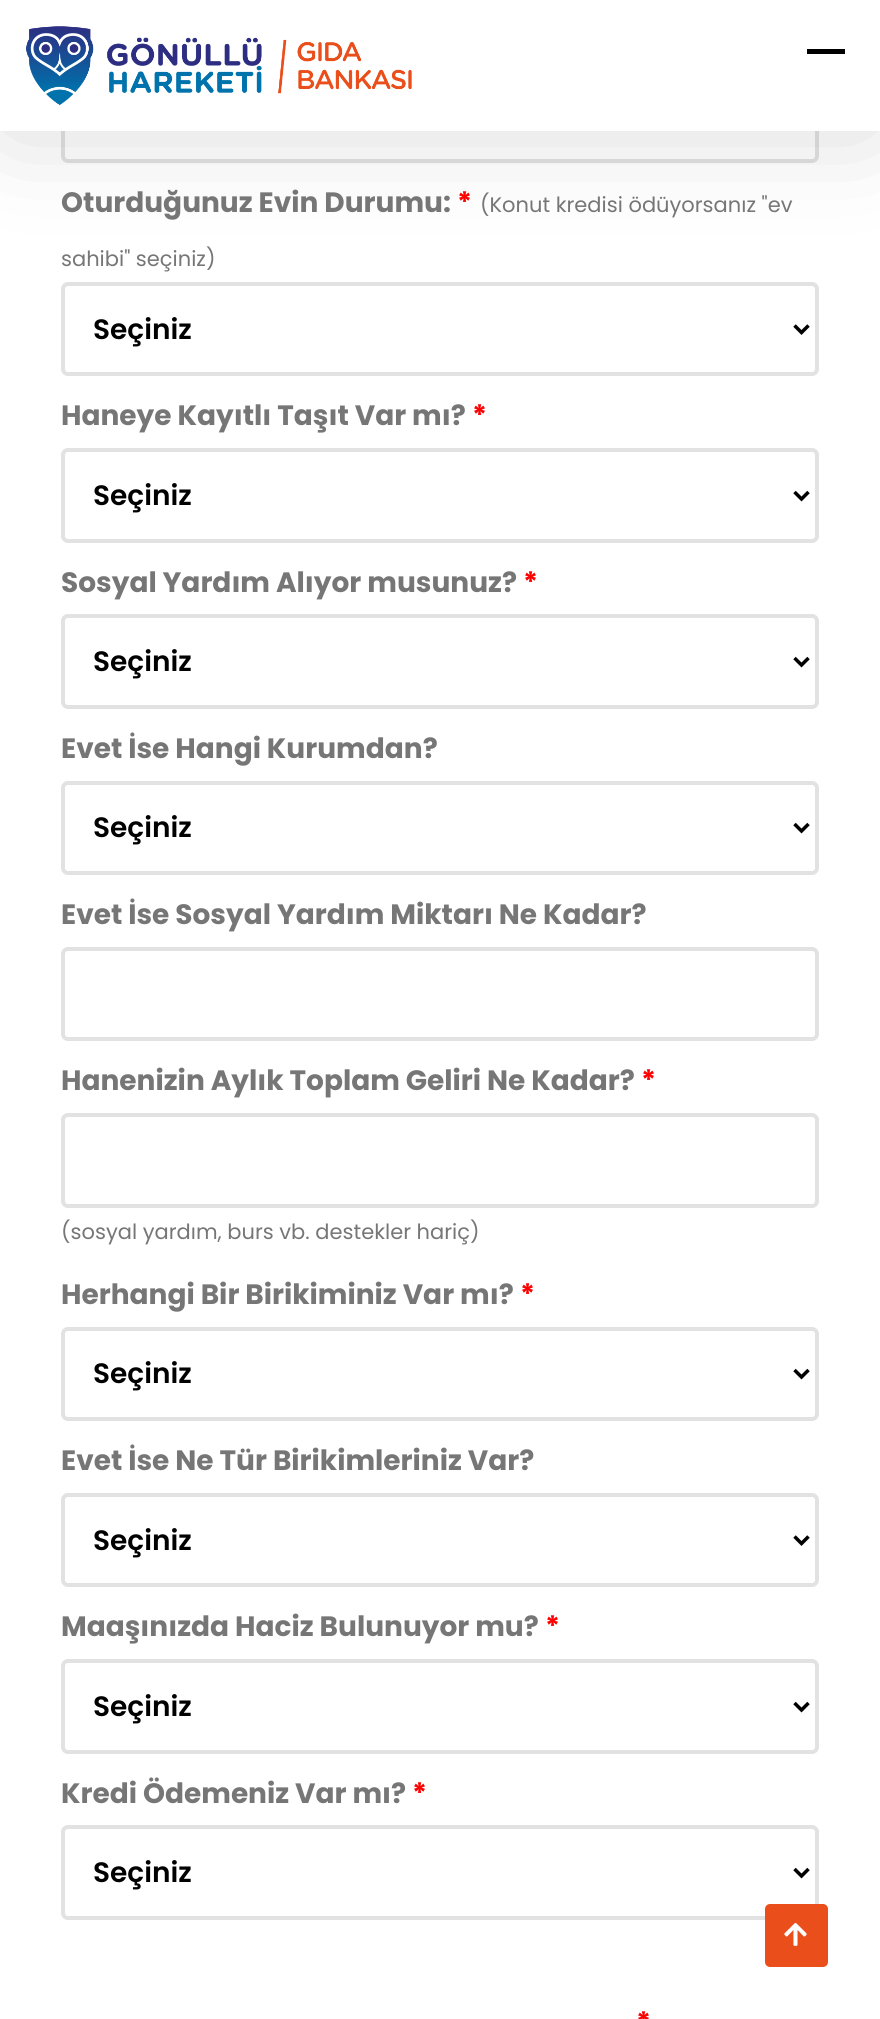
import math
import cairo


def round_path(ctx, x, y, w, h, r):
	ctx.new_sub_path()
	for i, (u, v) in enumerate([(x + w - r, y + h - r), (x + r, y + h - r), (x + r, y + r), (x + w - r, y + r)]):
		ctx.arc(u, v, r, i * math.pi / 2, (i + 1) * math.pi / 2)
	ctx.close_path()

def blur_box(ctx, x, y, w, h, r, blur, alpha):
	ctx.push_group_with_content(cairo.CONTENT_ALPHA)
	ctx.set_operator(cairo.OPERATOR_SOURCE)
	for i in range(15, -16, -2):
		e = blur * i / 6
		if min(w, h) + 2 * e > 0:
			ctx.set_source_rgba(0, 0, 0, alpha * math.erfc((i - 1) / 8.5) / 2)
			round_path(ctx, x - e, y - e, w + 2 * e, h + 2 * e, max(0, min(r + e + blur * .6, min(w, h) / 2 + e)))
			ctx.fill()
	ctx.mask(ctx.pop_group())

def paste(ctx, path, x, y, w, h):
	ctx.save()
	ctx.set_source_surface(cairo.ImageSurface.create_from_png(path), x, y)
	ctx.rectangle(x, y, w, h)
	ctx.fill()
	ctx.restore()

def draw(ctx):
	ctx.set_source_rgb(1, 1, 1)
	ctx.paint()
	round_path(ctx, 63, 70, 754, 91, 5)
	ctx.set_source_rgb(0.886, 0.886, 0.886)
	ctx.set_line_width(4)
	ctx.stroke()
	ctx.set_source_rgb(0.039, 0.039, 0.039)
	blur_box(ctx, 11, 11, 859, 110, 0, 52.5, 0.2)
	ctx.set_source_rgb(1, 1, 1)
	ctx.rectangle(0, 0, 880, 131)
	ctx.fill()
	paste(ctx, 'media/1.png', 26, 26, 386, 79)
	ctx.set_source_rgb(0, 0, 0)
	ctx.rectangle(807, 49, 38, 5)
	ctx.fill()
	ctx.select_font_face('Poppins', cairo.FONT_SLANT_NORMAL, cairo.FONT_WEIGHT_BOLD)
	ctx.set_font_size(28)
	ctx.set_source_rgb(0.463, 0.463, 0.463)
	ctx.move_to(61, 212)
	ctx.show_text('Oturduğunuz Evin Durumu:')
	ctx.set_source_rgb(1, 0, 0)
	ctx.move_to(457, 212)
	ctx.show_text('*')
	ctx.select_font_face('Poppins')
	ctx.set_font_size(21)
	ctx.set_source_rgb(0.463, 0.463, 0.463)
	ctx.move_to(480, 212)
	ctx.show_text('(Konut kredisi ödüyorsanız "ev')
	ctx.move_to(61, 266)
	ctx.show_text('sahibi" seçiniz)')
	round_path(ctx, 63, 284, 754, 90, 5)
	ctx.set_source_rgb(0.886, 0.886, 0.886)
	ctx.stroke()
	ctx.new_path()
	ctx.move_to(794.5, 325.5)
	ctx.line_to(801.5, 332.5)
	ctx.line_to(808.5, 325.5)
	ctx.set_source_rgb(0, 0, 0)
	ctx.set_line_width(3.5)
	ctx.stroke()
	ctx.select_font_face('Poppins SemiBold')
	ctx.set_font_size(28)
	ctx.move_to(93, 339)
	ctx.show_text('Seçiniz')
	ctx.select_font_face('Poppins', cairo.FONT_SLANT_NORMAL, cairo.FONT_WEIGHT_BOLD)
	ctx.set_source_rgb(0.463, 0.463, 0.463)
	ctx.move_to(61, 425)
	ctx.show_text('Haneye Kayıtlı Taşıt Var mı?')
	ctx.set_source_rgb(1, 0, 0)
	ctx.move_to(472, 425)
	ctx.show_text('*')
	round_path(ctx, 63, 450, 754, 91, 5)
	ctx.set_source_rgb(0.886, 0.886, 0.886)
	ctx.set_line_width(4)
	ctx.stroke()
	ctx.new_path()
	ctx.move_to(794.5, 492)
	ctx.line_to(801.5, 499)
	ctx.line_to(808.5, 492)
	ctx.set_source_rgb(0, 0, 0)
	ctx.set_line_width(3.5)
	ctx.stroke()
	ctx.select_font_face('Poppins SemiBold')
	ctx.move_to(93, 505)
	ctx.show_text('Seçiniz')
	ctx.select_font_face('Poppins', cairo.FONT_SLANT_NORMAL, cairo.FONT_WEIGHT_BOLD)
	ctx.set_source_rgb(0.463, 0.463, 0.463)
	ctx.move_to(61, 592)
	ctx.show_text('Sosyal Yardım Alıyor musunuz?')
	ctx.set_source_rgb(1, 0, 0)
	ctx.move_to(523, 592)
	ctx.show_text('*')
	round_path(ctx, 63, 616, 754, 91, 5)
	ctx.set_source_rgb(0.886, 0.886, 0.886)
	ctx.set_line_width(4)
	ctx.stroke()
	ctx.new_path()
	ctx.move_to(794.5, 658)
	ctx.line_to(801.5, 665)
	ctx.line_to(808.5, 658)
	ctx.set_source_rgb(0, 0, 0)
	ctx.set_line_width(3.5)
	ctx.stroke()
	ctx.select_font_face('Poppins SemiBold')
	ctx.move_to(93, 671)
	ctx.show_text('Seçiniz')
	ctx.select_font_face('Poppins', cairo.FONT_SLANT_NORMAL, cairo.FONT_WEIGHT_BOLD)
	ctx.set_source_rgb(0.463, 0.463, 0.463)
	ctx.move_to(61, 758)
	ctx.show_text('Evet İse Hangi Kurumdan?')
	round_path(ctx, 63, 783, 754, 90, 5)
	ctx.set_source_rgb(0.886, 0.886, 0.886)
	ctx.set_line_width(4)
	ctx.stroke()
	ctx.new_path()
	ctx.move_to(794.5, 824)
	ctx.line_to(801.5, 831)
	ctx.line_to(808.5, 824)
	ctx.set_source_rgb(0, 0, 0)
	ctx.set_line_width(3.5)
	ctx.stroke()
	ctx.select_font_face('Poppins SemiBold')
	ctx.move_to(93, 837)
	ctx.show_text('Seçiniz')
	ctx.select_font_face('Poppins', cairo.FONT_SLANT_NORMAL, cairo.FONT_WEIGHT_BOLD)
	ctx.set_source_rgb(0.463, 0.463, 0.463)
	ctx.move_to(61, 924)
	ctx.show_text('Evet İse Sosyal Yardım Miktarı Ne Kadar?')
	round_path(ctx, 63, 949, 754, 90, 5)
	ctx.set_source_rgb(0.886, 0.886, 0.886)
	ctx.set_line_width(4)
	ctx.stroke()
	ctx.set_source_rgb(0.463, 0.463, 0.463)
	ctx.move_to(61, 1090)
	ctx.show_text('Hanenizin Aylık Toplam Geliri Ne Kadar?')
	ctx.set_source_rgb(1, 0, 0)
	ctx.move_to(641, 1090)
	ctx.show_text('*')
	round_path(ctx, 63, 1115, 754, 91, 5)
	ctx.set_source_rgb(0.886, 0.886, 0.886)
	ctx.stroke()
	ctx.select_font_face('Poppins')
	ctx.set_font_size(21)
	ctx.set_source_rgb(0.463, 0.463, 0.463)
	ctx.move_to(61, 1239)
	ctx.show_text('(sosyal yardım, burs vb. destekler hariç)')
	ctx.select_font_face('Poppins', cairo.FONT_SLANT_NORMAL, cairo.FONT_WEIGHT_BOLD)
	ctx.set_font_size(28)
	ctx.move_to(61, 1304)
	ctx.show_text('Herhangi Bir Birikiminiz Var mı?')
	ctx.set_source_rgb(1, 0, 0)
	ctx.move_to(520, 1304)
	ctx.show_text('*')
	round_path(ctx, 63, 1329, 754, 90, 5)
	ctx.set_source_rgb(0.886, 0.886, 0.886)
	ctx.stroke()
	ctx.new_path()
	ctx.move_to(794.5, 1370)
	ctx.line_to(801.5, 1377)
	ctx.line_to(808.5, 1370)
	ctx.set_source_rgb(0, 0, 0)
	ctx.set_line_width(3.5)
	ctx.stroke()
	ctx.select_font_face('Poppins SemiBold')
	ctx.move_to(93, 1383)
	ctx.show_text('Seçiniz')
	ctx.select_font_face('Poppins', cairo.FONT_SLANT_NORMAL, cairo.FONT_WEIGHT_BOLD)
	ctx.set_source_rgb(0.463, 0.463, 0.463)
	ctx.move_to(61, 1470)
	ctx.show_text('Evet İse Ne Tür Birikimleriniz Var?')
	round_path(ctx, 63, 1495, 754, 90, 5)
	ctx.set_source_rgb(0.886, 0.886, 0.886)
	ctx.set_line_width(4)
	ctx.stroke()
	ctx.new_path()
	ctx.move_to(794.5, 1536.5)
	ctx.line_to(801.5, 1543.5)
	ctx.line_to(808.5, 1536.5)
	ctx.set_source_rgb(0, 0, 0)
	ctx.set_line_width(3.5)
	ctx.stroke()
	ctx.select_font_face('Poppins SemiBold')
	ctx.move_to(93, 1550)
	ctx.show_text('Seçiniz')
	ctx.select_font_face('Poppins', cairo.FONT_SLANT_NORMAL, cairo.FONT_WEIGHT_BOLD)
	ctx.set_source_rgb(0.463, 0.463, 0.463)
	ctx.move_to(61, 1636)
	ctx.show_text('Maaşınızda Haciz Bulunuyor mu?')
	ctx.set_source_rgb(1, 0, 0)
	ctx.move_to(545, 1636)
	ctx.show_text('*')
	round_path(ctx, 63, 1661, 754, 91, 5)
	ctx.set_source_rgb(0.886, 0.886, 0.886)
	ctx.set_line_width(4)
	ctx.stroke()
	ctx.new_path()
	ctx.move_to(794.5, 1703)
	ctx.line_to(801.5, 1710)
	ctx.line_to(808.5, 1703)
	ctx.set_source_rgb(0, 0, 0)
	ctx.set_line_width(3.5)
	ctx.stroke()
	ctx.select_font_face('Poppins SemiBold')
	ctx.move_to(93, 1716)
	ctx.show_text('Seçiniz')
	ctx.select_font_face('Poppins', cairo.FONT_SLANT_NORMAL, cairo.FONT_WEIGHT_BOLD)
	ctx.set_source_rgb(0.463, 0.463, 0.463)
	ctx.move_to(61, 1803)
	ctx.show_text('Kredi Ödemeniz Var mı?')
	ctx.set_source_rgb(1, 0, 0)
	ctx.move_to(412, 1803)
	ctx.show_text('*')
	round_path(ctx, 63, 1827, 754, 91, 5)
	ctx.set_source_rgb(0.886, 0.886, 0.886)
	ctx.set_line_width(4)
	ctx.stroke()
	ctx.new_path()
	ctx.move_to(794.5, 1869)
	ctx.line_to(801.5, 1876)
	ctx.line_to(808.5, 1869)
	ctx.set_source_rgb(0, 0, 0)
	ctx.set_line_width(3.5)
	ctx.stroke()
	ctx.select_font_face('Poppins SemiBold')
	ctx.move_to(93, 1882)
	ctx.show_text('Seçiniz')
	ctx.select_font_face('Poppins', cairo.FONT_SLANT_NORMAL, cairo.FONT_WEIGHT_BOLD)
	ctx.set_source_rgb(1, 0, 0)
	ctx.move_to(636, 2032)
	ctx.show_text('*')
	ctx.set_source_rgb(0.914, 0.306, 0.106)
	round_path(ctx, 765, 1904, 63, 63, 5)
	ctx.fill()
	paste(ctx, 'media/2.png', 784, 1922, 23, 24)


surface = cairo.ImageSurface(cairo.FORMAT_RGB24, 880, 2019)
ctx = cairo.Context(surface)
options = cairo.FontOptions()
options.set_hint_metrics(cairo.HINT_METRICS_OFF)
options.set_hint_style(cairo.HINT_STYLE_NONE)
ctx.set_font_options(options)
ctx.set_miter_limit(4)
draw(ctx)
surface.write_to_png('image.png')
